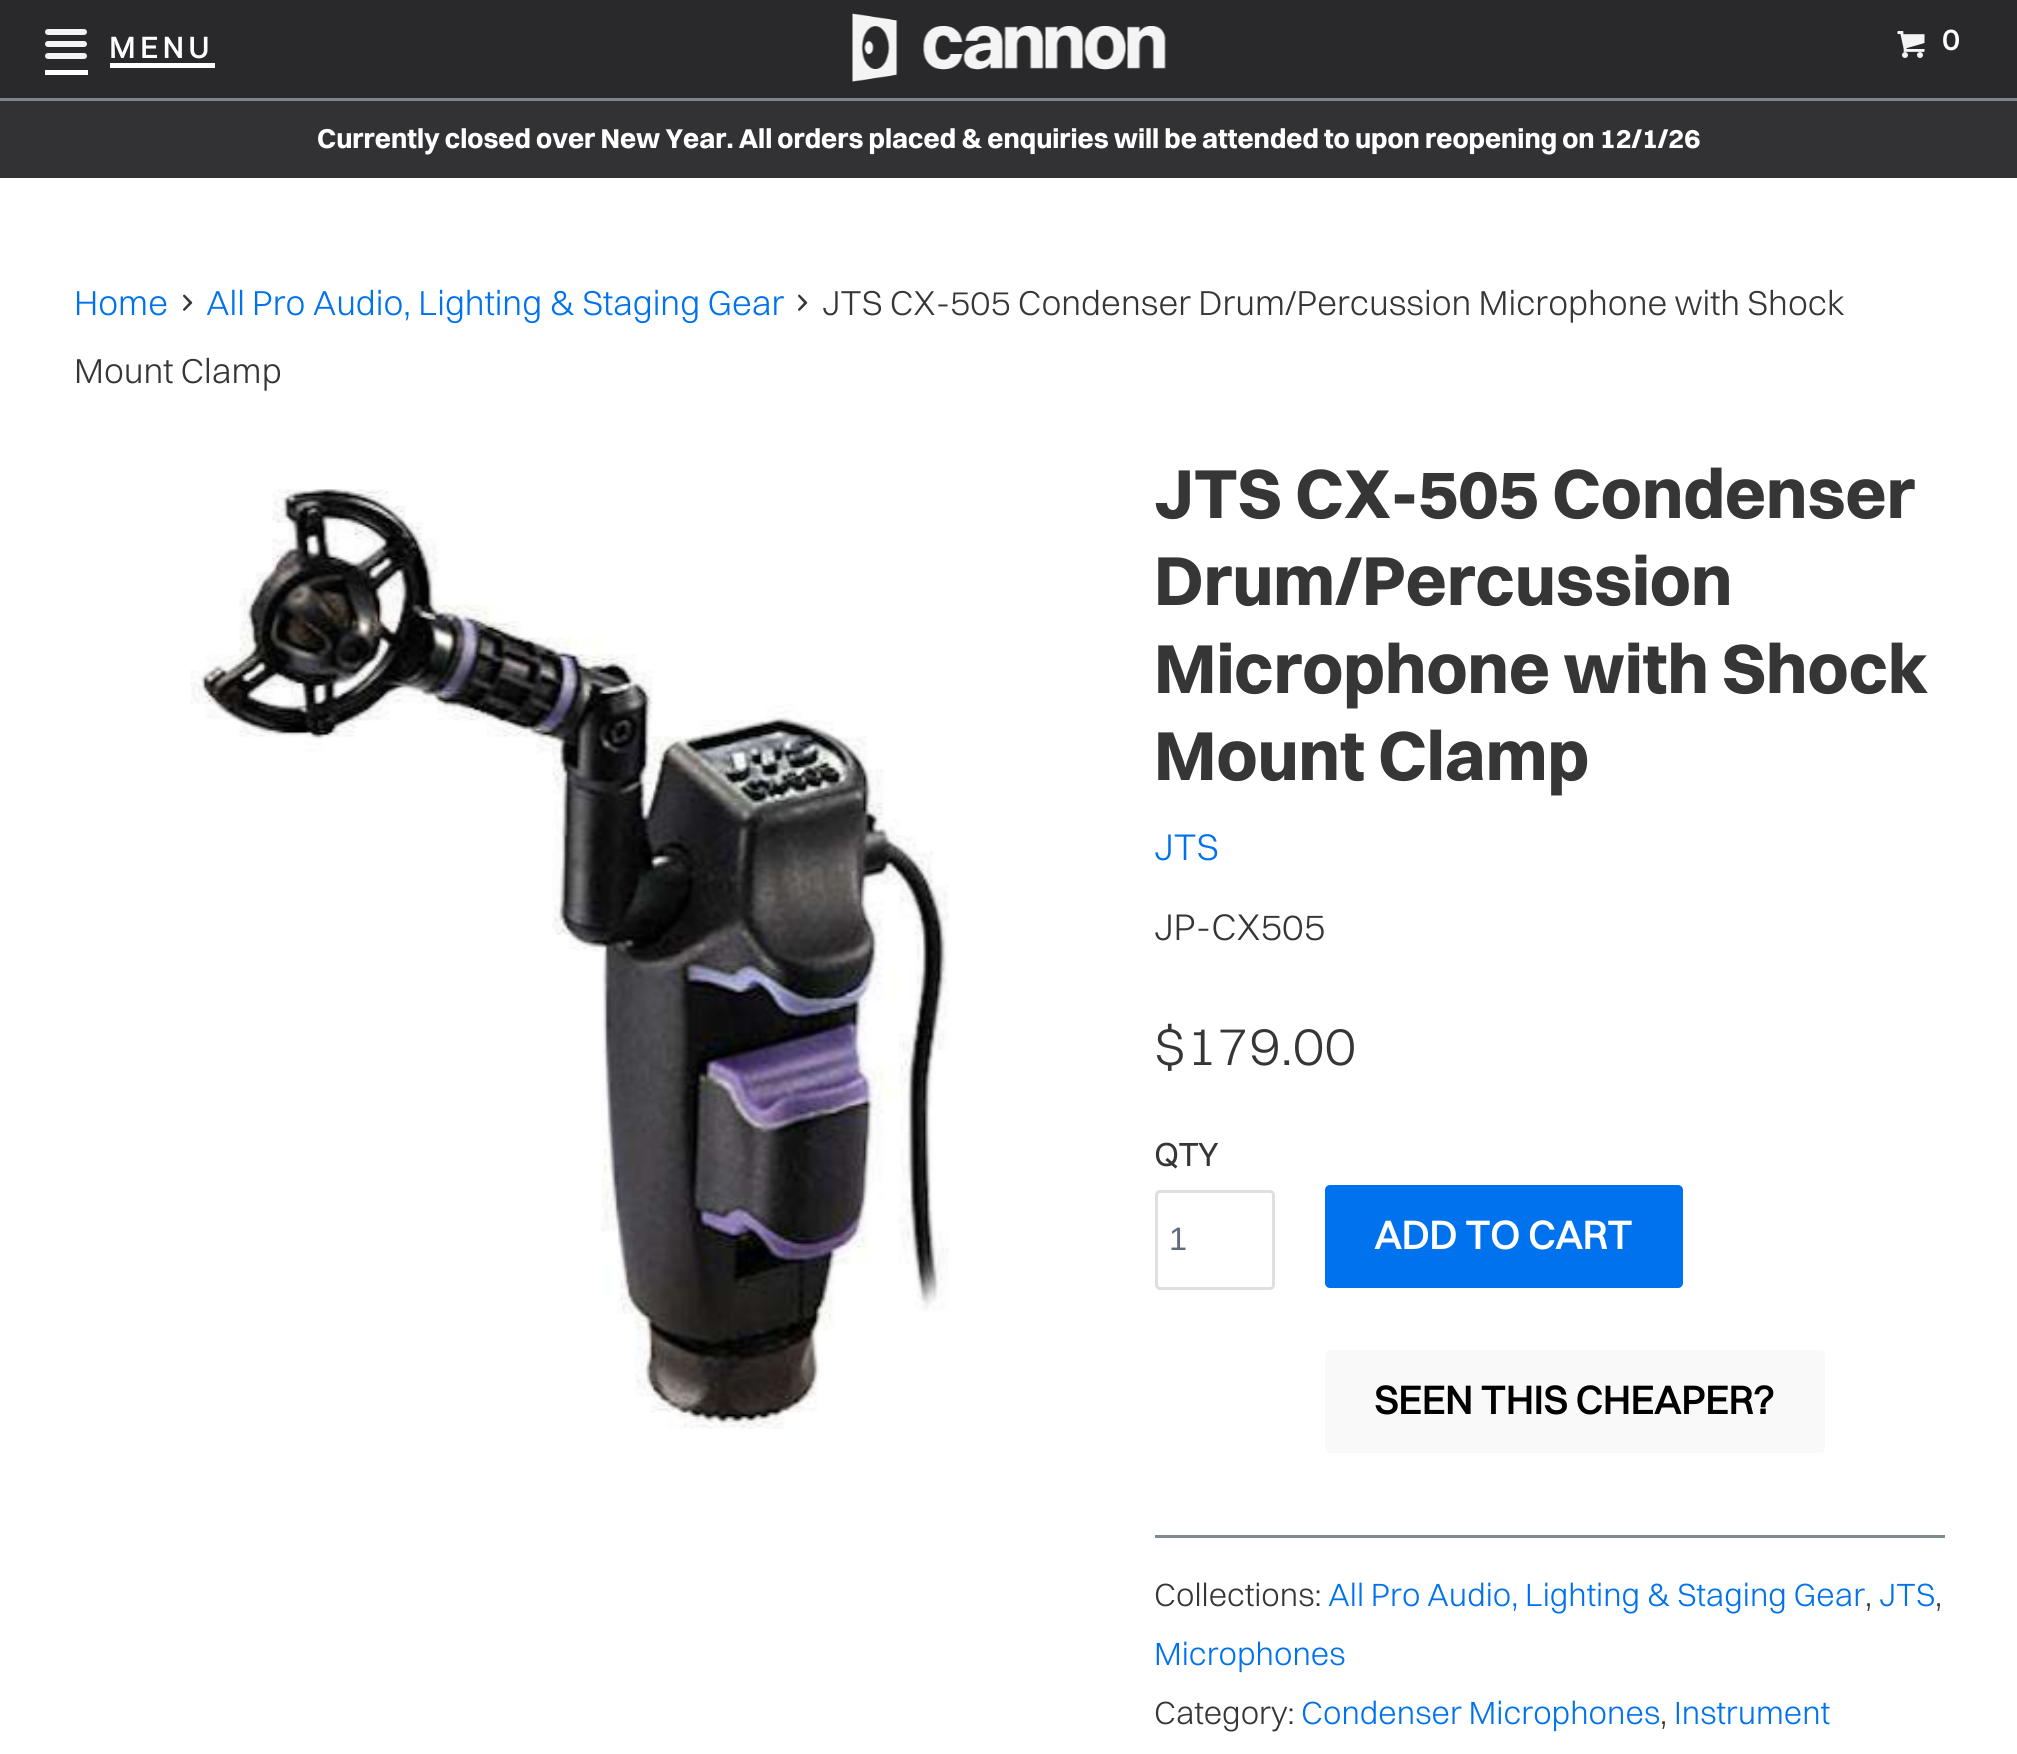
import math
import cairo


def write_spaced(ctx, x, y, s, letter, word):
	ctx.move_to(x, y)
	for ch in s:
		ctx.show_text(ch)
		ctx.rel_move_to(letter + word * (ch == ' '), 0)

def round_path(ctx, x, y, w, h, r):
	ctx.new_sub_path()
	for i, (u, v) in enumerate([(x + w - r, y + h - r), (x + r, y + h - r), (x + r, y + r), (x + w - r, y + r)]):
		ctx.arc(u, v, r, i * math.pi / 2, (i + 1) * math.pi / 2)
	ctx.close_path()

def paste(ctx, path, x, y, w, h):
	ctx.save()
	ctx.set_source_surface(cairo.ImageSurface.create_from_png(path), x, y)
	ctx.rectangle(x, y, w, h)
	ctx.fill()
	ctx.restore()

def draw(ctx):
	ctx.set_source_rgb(1, 1, 1)
	ctx.paint()
	ctx.set_source_rgb(0.161, 0.161, 0.173)
	ctx.rectangle(0, 0, 2017, 98)
	ctx.fill()
	ctx.set_source_rgb(0.482, 0.533, 0.537)
	ctx.rectangle(0, 98, 2017, 3)
	ctx.fill()
	paste(ctx, 'media/1.png', 45, 29, 42, 30)
	ctx.select_font_face('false', cairo.FONT_SLANT_NORMAL, cairo.FONT_WEIGHT_BOLD)
	ctx.set_font_size(30)
	ctx.set_source_rgb(1, 1, 1)
	write_spaced(ctx, 109, 58, 'MENU', 5, 0)
	ctx.rectangle(110, 63, 105, 5)
	ctx.fill()
	ctx.rectangle(45, 70, 43, 5)
	ctx.fill()
	paste(ctx, 'media/2.png', 852, 13, 314, 69)
	paste(ctx, 'media/3.png', 1897, 31, 28, 27)
	write_spaced(ctx, 1942, 50, '0', 5, 0)
	ctx.select_font_face('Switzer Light')
	ctx.set_font_size(35)
	ctx.set_source_rgb(0, 0.447, 0.929)
	ctx.move_to(74, 315)
	ctx.show_text('Home')
	paste(ctx, 'media/4.png', 183, 294, 10, 17)
	ctx.move_to(206, 315)
	ctx.show_text('All Pro Audio, Lighting & Staging Gear')
	paste(ctx, 'media/4.png', 798, 294, 10, 17)
	ctx.set_source_rgb(0.212, 0.212, 0.212)
	ctx.move_to(822, 315)
	ctx.show_text('JTS CX-505 Condenser Drum/Percussion Microphone with Shock')
	ctx.move_to(74, 383)
	ctx.show_text('Mount Clamp')
	paste(ctx, 'media/5.png', 190, 489, 759, 940)
	ctx.select_font_face('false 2', cairo.FONT_SLANT_NORMAL, cairo.FONT_WEIGHT_BOLD)
	ctx.set_font_size(70)
	for x, y, s in [
		(1154, 518, 'JTS CX-505 Condenser'),
		(1154, 605, 'Drum/Percussion'),
		(1154, 693, 'Microphone with Shock'),
		(1154, 780, 'Mount Clamp'),
	]:
		ctx.move_to(x, y)
		ctx.show_text(s)
	ctx.select_font_face('Switzer Light')
	ctx.set_font_size(37.5)
	ctx.set_source_rgb(0, 0.447, 0.929)
	ctx.move_to(1154, 860)
	ctx.show_text('JTS')
	ctx.set_source_rgb(0.212, 0.212, 0.212)
	ctx.move_to(1154, 940)
	ctx.show_text('JP-CX505')
	ctx.set_font_size(55)
	ctx.move_to(1154, 1065)
	ctx.show_text('$179.00')
	ctx.select_font_face('Switzer', cairo.FONT_SLANT_NORMAL, cairo.FONT_WEIGHT_BOLD)
	ctx.set_font_size(32.5)
	ctx.move_to(1154, 1166)
	ctx.show_text('QTY')
	round_path(ctx, 1156.5, 1191.5, 117, 97, 3.5)
	ctx.set_source_rgb(0.875, 0.875, 0.875)
	ctx.set_line_width(3)
	ctx.stroke()
	ctx.select_font_face('Liberation Sans')
	ctx.set_source_rgb(0.373, 0.416, 0.49)
	ctx.move_to(1169, 1250)
	ctx.show_text('1')
	ctx.set_source_rgb(0, 0.447, 0.929)
	round_path(ctx, 1325, 1185, 358, 103, 5)
	ctx.fill()
	ctx.select_font_face('false', cairo.FONT_SLANT_NORMAL, cairo.FONT_WEIGHT_BOLD)
	ctx.set_font_size(40)
	ctx.set_source_rgb(1, 1, 1)
	ctx.move_to(1374, 1249)
	ctx.show_text('ADD TO CART')
	ctx.set_source_rgb(0.973, 0.973, 0.98)
	round_path(ctx, 1325, 1350, 500, 103, 5)
	ctx.fill()
	ctx.set_source_rgb(0, 0, 0)
	ctx.move_to(1374, 1414)
	ctx.show_text('SEEN THIS CHEAPER?')
	ctx.set_source_rgb(0.498, 0.549, 0.553)
	ctx.rectangle(1155, 1535, 790, 3)
	ctx.fill()
	ctx.select_font_face('Switzer Light')
	ctx.set_font_size(32.5)
	ctx.set_source_rgb(0.212, 0.212, 0.212)
	ctx.move_to(1154, 1606)
	ctx.show_text('Collections:')
	ctx.set_source_rgb(0, 0.447, 0.929)
	ctx.move_to(1328, 1606)
	ctx.show_text('All Pro Audio, Lighting & Staging Gear')
	ctx.set_source_rgb(0.212, 0.212, 0.212)
	ctx.move_to(1865, 1606)
	ctx.show_text(',')
	ctx.set_source_rgb(0, 0.447, 0.929)
	ctx.move_to(1879, 1606)
	ctx.show_text('JTS')
	ctx.set_source_rgb(0.212, 0.212, 0.212)
	ctx.move_to(1935, 1606)
	ctx.show_text(',')
	ctx.set_source_rgb(0, 0.447, 0.929)
	ctx.move_to(1154, 1665)
	ctx.show_text('Microphones')
	ctx.set_source_rgb(0.212, 0.212, 0.212)
	ctx.move_to(1154, 1724)
	ctx.show_text('Category:')
	ctx.set_source_rgb(0, 0.447, 0.929)
	ctx.move_to(1301, 1724)
	ctx.show_text('Condenser Microphones')
	ctx.set_source_rgb(0.212, 0.212, 0.212)
	ctx.move_to(1660, 1724)
	ctx.show_text(',')
	ctx.set_source_rgb(0, 0.447, 0.929)
	ctx.move_to(1674, 1724)
	ctx.show_text('Instrument')
	ctx.set_source_rgb(0.196, 0.196, 0.204)
	ctx.rectangle(0, 101, 2017, 77)
	ctx.fill()
	ctx.select_font_face('false 2', cairo.FONT_SLANT_NORMAL, cairo.FONT_WEIGHT_BOLD)
	ctx.set_font_size(27.5)
	ctx.set_source_rgb(1, 1, 1)
	ctx.move_to(317, 148)
	ctx.show_text('Currently closed over New Year. All orders placed & enquiries will be attended to upon reopening on 12/1/26')


surface = cairo.ImageSurface(cairo.FORMAT_RGB24, 2017, 1754)
ctx = cairo.Context(surface)
options = cairo.FontOptions()
options.set_hint_metrics(cairo.HINT_METRICS_OFF)
options.set_hint_style(cairo.HINT_STYLE_NONE)
ctx.set_font_options(options)
ctx.set_miter_limit(4)
draw(ctx)
surface.write_to_png('image.png')
